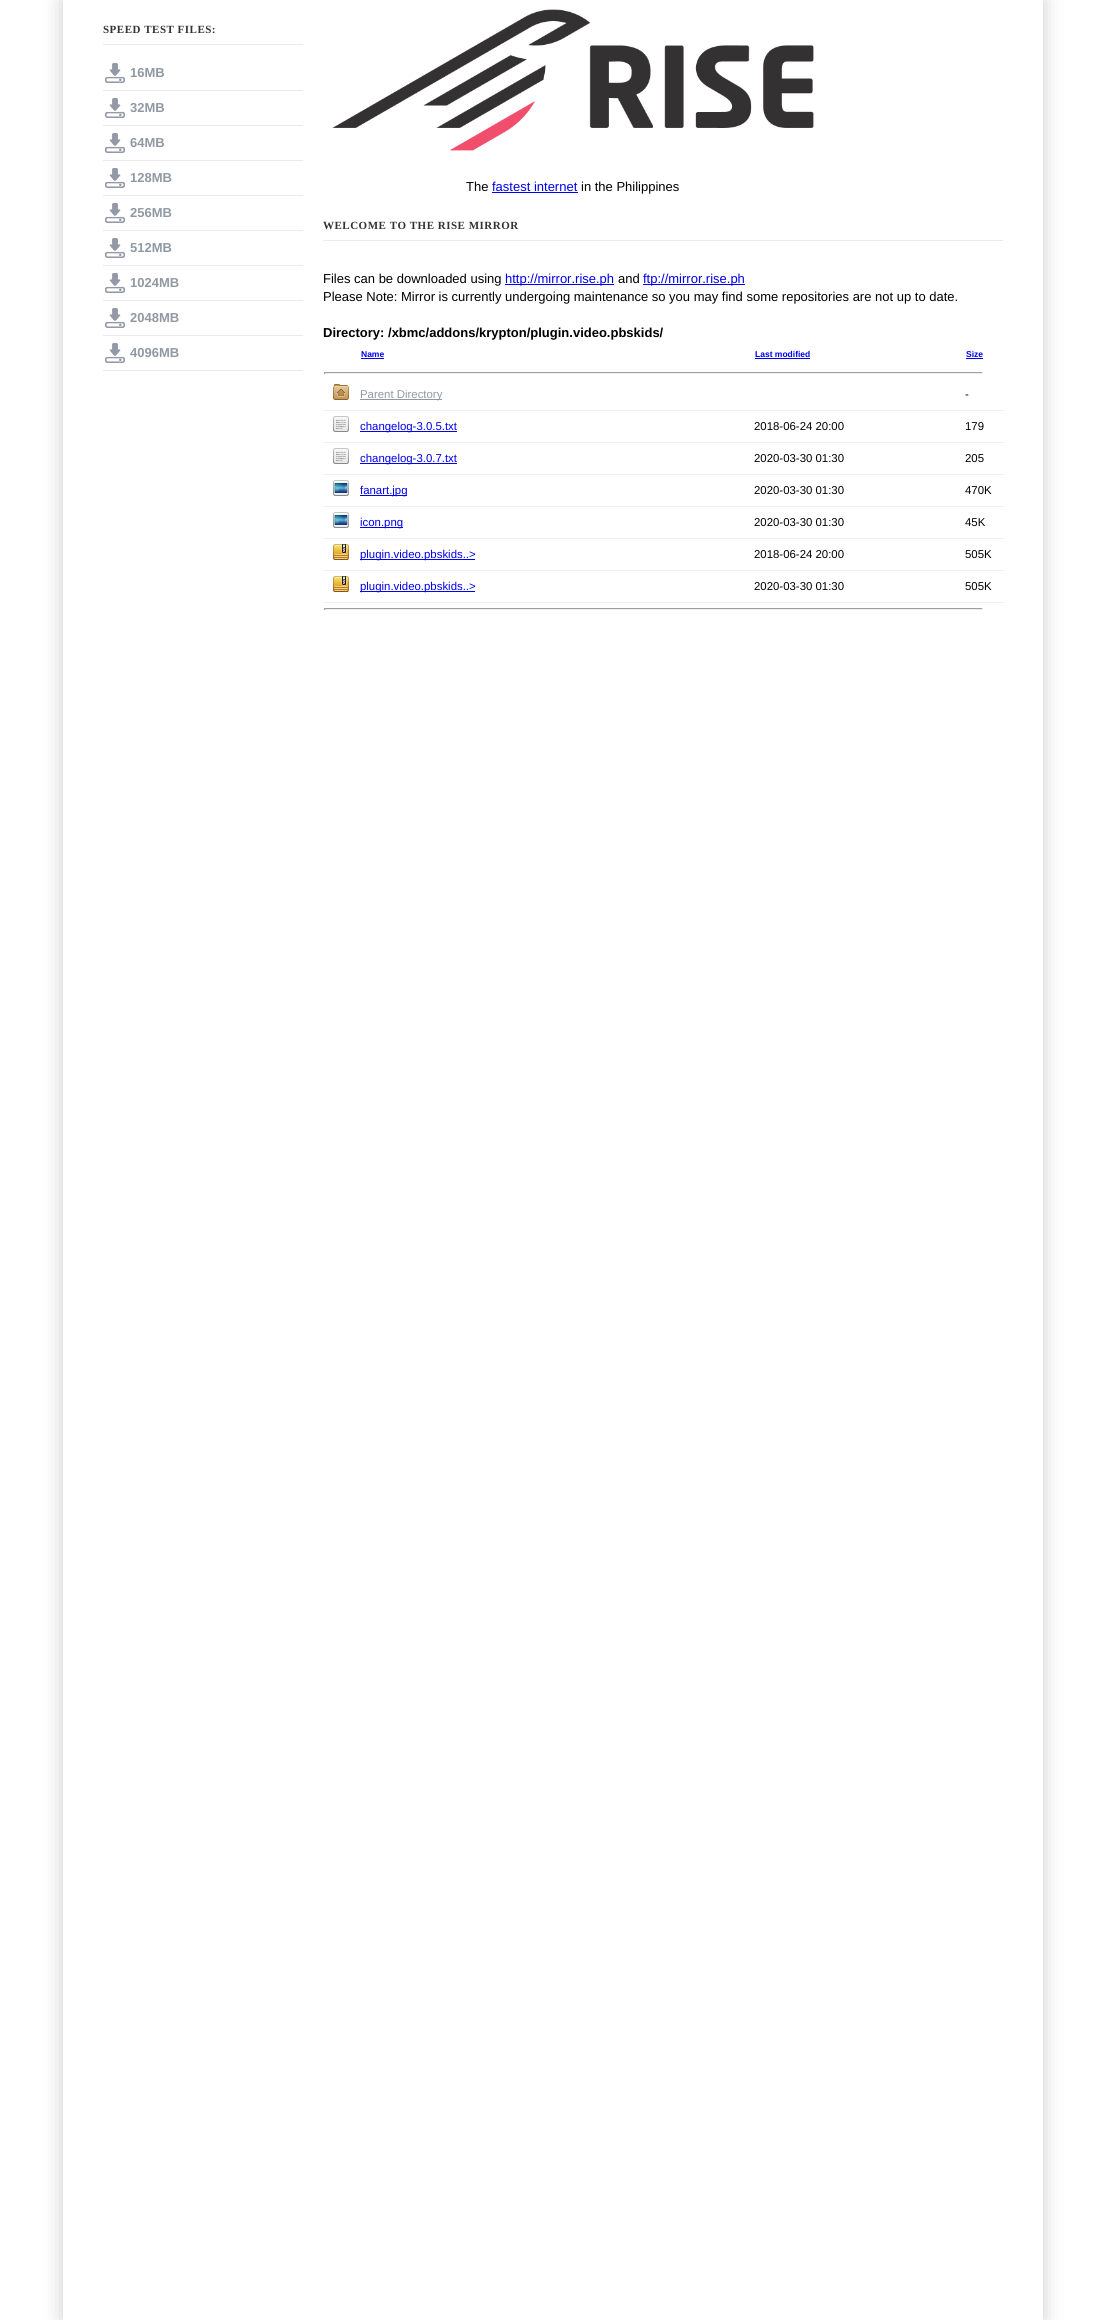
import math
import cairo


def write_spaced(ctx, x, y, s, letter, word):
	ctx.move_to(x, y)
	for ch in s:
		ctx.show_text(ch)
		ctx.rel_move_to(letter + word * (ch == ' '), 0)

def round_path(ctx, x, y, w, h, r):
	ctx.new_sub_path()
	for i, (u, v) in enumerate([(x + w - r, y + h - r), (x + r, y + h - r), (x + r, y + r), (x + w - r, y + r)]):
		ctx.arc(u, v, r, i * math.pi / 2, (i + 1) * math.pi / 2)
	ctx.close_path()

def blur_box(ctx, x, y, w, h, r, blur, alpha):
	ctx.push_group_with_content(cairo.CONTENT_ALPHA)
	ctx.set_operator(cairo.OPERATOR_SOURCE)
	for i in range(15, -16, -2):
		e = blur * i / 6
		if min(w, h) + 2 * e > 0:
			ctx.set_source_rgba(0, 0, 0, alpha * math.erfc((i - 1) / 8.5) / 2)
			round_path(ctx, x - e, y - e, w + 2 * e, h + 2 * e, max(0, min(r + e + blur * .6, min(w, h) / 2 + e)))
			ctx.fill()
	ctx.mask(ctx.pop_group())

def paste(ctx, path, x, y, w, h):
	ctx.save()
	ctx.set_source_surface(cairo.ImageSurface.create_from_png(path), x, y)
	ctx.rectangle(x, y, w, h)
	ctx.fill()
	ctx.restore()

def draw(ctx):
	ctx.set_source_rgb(1, 1, 1)
	ctx.paint()
	ctx.save()
	ctx.set_fill_rule(cairo.FILL_RULE_EVEN_ODD)
	ctx.new_path()
	ctx.move_to(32, 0)
	ctx.line_to(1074, 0)
	ctx.line_to(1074, 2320)
	ctx.line_to(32, 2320)
	ctx.close_path()
	ctx.move_to(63, 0)
	ctx.line_to(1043, 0)
	ctx.line_to(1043, 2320)
	ctx.line_to(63, 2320)
	ctx.close_path()
	ctx.clip()
	ctx.set_source_rgb(0.8, 0.8, 0.8)
	blur_box(ctx, 63, 0, 980, 2320, 0, 10, 1)
	ctx.restore()
	ctx.set_source_rgb(0.918, 0.918, 0.918)
	ctx.rectangle(103, 44, 200, 1)
	ctx.fill()
	ctx.select_font_face('Liberation Serif', cairo.FONT_SLANT_NORMAL, cairo.FONT_WEIGHT_BOLD)
	ctx.set_font_size(11)
	ctx.set_source_rgb(0.2, 0.2, 0.2)
	write_spaced(ctx, 103, 33, 'SPEED TEST FILES:', 0.5, 0)
	ctx.set_source_rgb(0.918, 0.918, 0.918)
	ctx.rectangle(103, 90, 200, 1)
	ctx.fill()
	paste(ctx, 'media/1.png', 105, 63, 20, 20)
	ctx.select_font_face('Liberation Sans', cairo.FONT_SLANT_NORMAL, cairo.FONT_WEIGHT_BOLD)
	ctx.set_font_size(13)
	ctx.set_source_rgb(0.565, 0.6, 0.639)
	ctx.move_to(130, 77)
	ctx.show_text('16MB')
	ctx.set_source_rgb(0.918, 0.918, 0.918)
	ctx.rectangle(103, 125, 200, 1)
	ctx.fill()
	paste(ctx, 'media/1.png', 105, 98, 20, 20)
	ctx.set_source_rgb(0.565, 0.6, 0.639)
	ctx.move_to(130, 112)
	ctx.show_text('32MB')
	ctx.set_source_rgb(0.918, 0.918, 0.918)
	ctx.rectangle(103, 160, 200, 1)
	ctx.fill()
	paste(ctx, 'media/1.png', 105, 133, 20, 20)
	ctx.set_source_rgb(0.565, 0.6, 0.639)
	ctx.move_to(130, 147)
	ctx.show_text('64MB')
	ctx.set_source_rgb(0.918, 0.918, 0.918)
	ctx.rectangle(103, 195, 200, 1)
	ctx.fill()
	paste(ctx, 'media/1.png', 105, 168, 20, 20)
	ctx.set_source_rgb(0.565, 0.6, 0.639)
	ctx.move_to(130, 182)
	ctx.show_text('128MB')
	ctx.set_source_rgb(0.918, 0.918, 0.918)
	ctx.rectangle(103, 230, 200, 1)
	ctx.fill()
	paste(ctx, 'media/1.png', 105, 203, 20, 20)
	ctx.set_source_rgb(0.565, 0.6, 0.639)
	ctx.move_to(130, 217)
	ctx.show_text('256MB')
	ctx.set_source_rgb(0.918, 0.918, 0.918)
	ctx.rectangle(103, 265, 200, 1)
	ctx.fill()
	paste(ctx, 'media/1.png', 105, 238, 20, 20)
	ctx.set_source_rgb(0.565, 0.6, 0.639)
	ctx.move_to(130, 252)
	ctx.show_text('512MB')
	ctx.set_source_rgb(0.918, 0.918, 0.918)
	ctx.rectangle(103, 300, 200, 1)
	ctx.fill()
	paste(ctx, 'media/1.png', 105, 273, 20, 20)
	ctx.set_source_rgb(0.565, 0.6, 0.639)
	ctx.move_to(130, 287)
	ctx.show_text('1024MB')
	ctx.set_source_rgb(0.918, 0.918, 0.918)
	ctx.rectangle(103, 335, 200, 1)
	ctx.fill()
	paste(ctx, 'media/1.png', 105, 308, 20, 20)
	ctx.set_source_rgb(0.565, 0.6, 0.639)
	ctx.move_to(130, 322)
	ctx.show_text('2048MB')
	ctx.set_source_rgb(0.918, 0.918, 0.918)
	ctx.rectangle(103, 370, 200, 1)
	ctx.fill()
	paste(ctx, 'media/1.png', 105, 343, 20, 20)
	ctx.set_source_rgb(0.565, 0.6, 0.639)
	ctx.move_to(130, 357)
	ctx.show_text('4096MB')
	paste(ctx, 'media/2.png', 332, 9, 482, 142)
	ctx.select_font_face('Liberation Sans')
	ctx.set_source_rgb(0, 0, 0)
	ctx.move_to(466, 191)
	ctx.show_text('The')
	ctx.set_source_rgb(0, 0, 0.933)
	ctx.move_to(492, 191)
	ctx.show_text('fastest internet')
	ctx.rectangle(492, 192, 86, 1)
	ctx.fill()
	ctx.set_source_rgb(0, 0, 0)
	ctx.move_to(581, 191)
	ctx.show_text('in the Philippines')
	ctx.set_source_rgb(0.918, 0.918, 0.918)
	ctx.rectangle(323, 240, 680, 1)
	ctx.fill()
	ctx.select_font_face('Liberation Serif', cairo.FONT_SLANT_NORMAL, cairo.FONT_WEIGHT_BOLD)
	ctx.set_font_size(11)
	ctx.set_source_rgb(0.2, 0.2, 0.2)
	write_spaced(ctx, 323, 229, 'WELCOME TO THE RISE MIRROR', 0.5, 0)
	ctx.select_font_face('Liberation Sans')
	ctx.set_font_size(13)
	ctx.set_source_rgb(0, 0, 0)
	ctx.move_to(323, 283)
	ctx.show_text('Files can be downloaded using')
	ctx.set_source_rgb(0, 0, 0.933)
	ctx.rectangle(505, 284, 109, 1)
	ctx.fill()
	ctx.move_to(505, 283)
	ctx.show_text('http://mirror.rise.ph')
	ctx.set_source_rgb(0, 0, 0)
	ctx.move_to(618, 283)
	ctx.show_text('and')
	ctx.set_source_rgb(0, 0, 0.933)
	ctx.rectangle(643, 284, 102, 1)
	ctx.fill()
	ctx.move_to(643, 283)
	ctx.show_text('ftp://mirror.rise.ph')
	ctx.set_source_rgb(0, 0, 0)
	ctx.move_to(323, 301)
	ctx.show_text('Please Note: Mirror is currently undergoing maintenance so you may find some repositories are not up to date.')
	ctx.select_font_face('Liberation Sans', cairo.FONT_SLANT_NORMAL, cairo.FONT_WEIGHT_BOLD)
	ctx.move_to(323, 337)
	ctx.show_text('Directory: /xbmc/addons/krypton/plugin.video.pbskids/')
	ctx.set_font_size(8.5)
	ctx.set_source_rgb(0, 0, 0.933)
	ctx.move_to(361, 357)
	ctx.show_text('Name')
	ctx.rectangle(361, 358, 23, 1)
	ctx.fill()
	ctx.move_to(755, 357)
	ctx.show_text('Last modified')
	ctx.rectangle(755, 358, 55, 1)
	ctx.fill()
	ctx.move_to(966, 357)
	ctx.show_text('Size')
	ctx.rectangle(966, 358, 17, 1)
	ctx.fill()
	ctx.set_source_rgb(0.624, 0.624, 0.624)
	ctx.rectangle(324, 372, 659, 1)
	ctx.fill()
	ctx.set_source_rgb(0.933, 0.933, 0.933)
	ctx.rectangle(982, 372, 1, 2)
	ctx.rectangle(324, 373, 659, 1)
	ctx.fill()
	ctx.set_source_rgb(0.624, 0.624, 0.624)
	ctx.rectangle(324, 372, 1, 2)
	ctx.fill()
	paste(ctx, 'media/3.png', 333, 384, 16, 16)
	ctx.set_source_rgb(0.565, 0.6, 0.639)
	ctx.rectangle(360, 399, 82, 1)
	ctx.fill()
	ctx.select_font_face('Liberation Sans')
	ctx.set_font_size(11.4)
	ctx.move_to(360, 398)
	ctx.show_text('Parent Directory')
	ctx.set_source_rgb(0.929, 0.945, 0.961)
	ctx.rectangle(323, 410, 681, 1)
	ctx.fill()
	ctx.set_source_rgb(0, 0, 0)
	ctx.move_to(965, 398)
	ctx.show_text('-')
	paste(ctx, 'media/4.png', 333, 416, 16, 16)
	ctx.set_source_rgb(0, 0, 0.933)
	ctx.rectangle(360, 431, 97, 1)
	ctx.fill()
	ctx.move_to(360, 430)
	ctx.show_text('changelog-3.0.5.txt')
	ctx.set_source_rgb(0, 0, 0)
	ctx.move_to(754, 430)
	ctx.show_text('2018-06-24 20:00')
	ctx.set_source_rgb(0.929, 0.945, 0.961)
	ctx.rectangle(323, 442, 681, 1)
	ctx.fill()
	ctx.set_source_rgb(0, 0, 0)
	ctx.move_to(965, 430)
	ctx.show_text('179')
	paste(ctx, 'media/4.png', 333, 448, 16, 16)
	ctx.set_source_rgb(0, 0, 0.933)
	ctx.rectangle(360, 463, 97, 1)
	ctx.fill()
	ctx.move_to(360, 462)
	ctx.show_text('changelog-3.0.7.txt')
	ctx.set_source_rgb(0, 0, 0)
	ctx.move_to(754, 462)
	ctx.show_text('2020-03-30 01:30')
	ctx.set_source_rgb(0.929, 0.945, 0.961)
	ctx.rectangle(323, 474, 681, 1)
	ctx.fill()
	ctx.set_source_rgb(0, 0, 0)
	ctx.move_to(965, 462)
	ctx.show_text('205')
	paste(ctx, 'media/5.png', 333, 480, 16, 16)
	ctx.set_source_rgb(0, 0, 0.933)
	ctx.rectangle(360, 495, 47, 1)
	ctx.fill()
	ctx.move_to(360, 494)
	ctx.show_text('fanart.jpg')
	ctx.set_source_rgb(0, 0, 0)
	ctx.move_to(754, 494)
	ctx.show_text('2020-03-30 01:30')
	ctx.set_source_rgb(0.929, 0.945, 0.961)
	ctx.rectangle(323, 506, 681, 1)
	ctx.fill()
	ctx.set_source_rgb(0, 0, 0)
	ctx.move_to(965, 494)
	ctx.show_text('470K')
	paste(ctx, 'media/5.png', 333, 512, 16, 16)
	ctx.set_source_rgb(0, 0, 0.933)
	ctx.rectangle(360, 527, 43, 1)
	ctx.fill()
	ctx.move_to(360, 526)
	ctx.show_text('icon.png')
	ctx.set_source_rgb(0, 0, 0)
	ctx.move_to(754, 526)
	ctx.show_text('2020-03-30 01:30')
	ctx.set_source_rgb(0.929, 0.945, 0.961)
	ctx.rectangle(323, 538, 681, 1)
	ctx.fill()
	ctx.set_source_rgb(0, 0, 0)
	ctx.move_to(965, 526)
	ctx.show_text('45K')
	paste(ctx, 'media/6.png', 333, 544, 16, 16)
	ctx.set_source_rgb(0, 0, 0.933)
	ctx.rectangle(360, 559, 115, 1)
	ctx.fill()
	ctx.move_to(360, 558)
	ctx.show_text('plugin.video.pbskids..>')
	ctx.set_source_rgb(0, 0, 0)
	ctx.move_to(754, 558)
	ctx.show_text('2018-06-24 20:00')
	ctx.set_source_rgb(0.929, 0.945, 0.961)
	ctx.rectangle(323, 570, 681, 1)
	ctx.fill()
	ctx.set_source_rgb(0, 0, 0)
	ctx.move_to(965, 558)
	ctx.show_text('505K')
	paste(ctx, 'media/6.png', 333, 576, 16, 16)
	ctx.set_source_rgb(0, 0, 0.933)
	ctx.rectangle(360, 591, 115, 1)
	ctx.fill()
	ctx.move_to(360, 590)
	ctx.show_text('plugin.video.pbskids..>')
	ctx.set_source_rgb(0, 0, 0)
	ctx.move_to(754, 590)
	ctx.show_text('2020-03-30 01:30')
	ctx.set_source_rgb(0.929, 0.945, 0.961)
	ctx.rectangle(323, 602, 681, 1)
	ctx.fill()
	ctx.set_source_rgb(0, 0, 0)
	ctx.move_to(965, 590)
	ctx.show_text('505K')
	ctx.set_source_rgb(0.624, 0.624, 0.624)
	ctx.rectangle(324, 608, 659, 1)
	ctx.fill()
	ctx.set_source_rgb(0.933, 0.933, 0.933)
	ctx.rectangle(982, 608, 1, 2)
	ctx.rectangle(324, 609, 659, 1)
	ctx.fill()
	ctx.set_source_rgb(0.624, 0.624, 0.624)
	ctx.rectangle(324, 608, 1, 2)
	ctx.fill()


surface = cairo.ImageSurface(cairo.FORMAT_RGB24, 1106, 2320)
ctx = cairo.Context(surface)
options = cairo.FontOptions()
options.set_hint_metrics(cairo.HINT_METRICS_OFF)
options.set_hint_style(cairo.HINT_STYLE_NONE)
ctx.set_font_options(options)
ctx.set_miter_limit(4)
draw(ctx)
surface.write_to_png('image.png')
